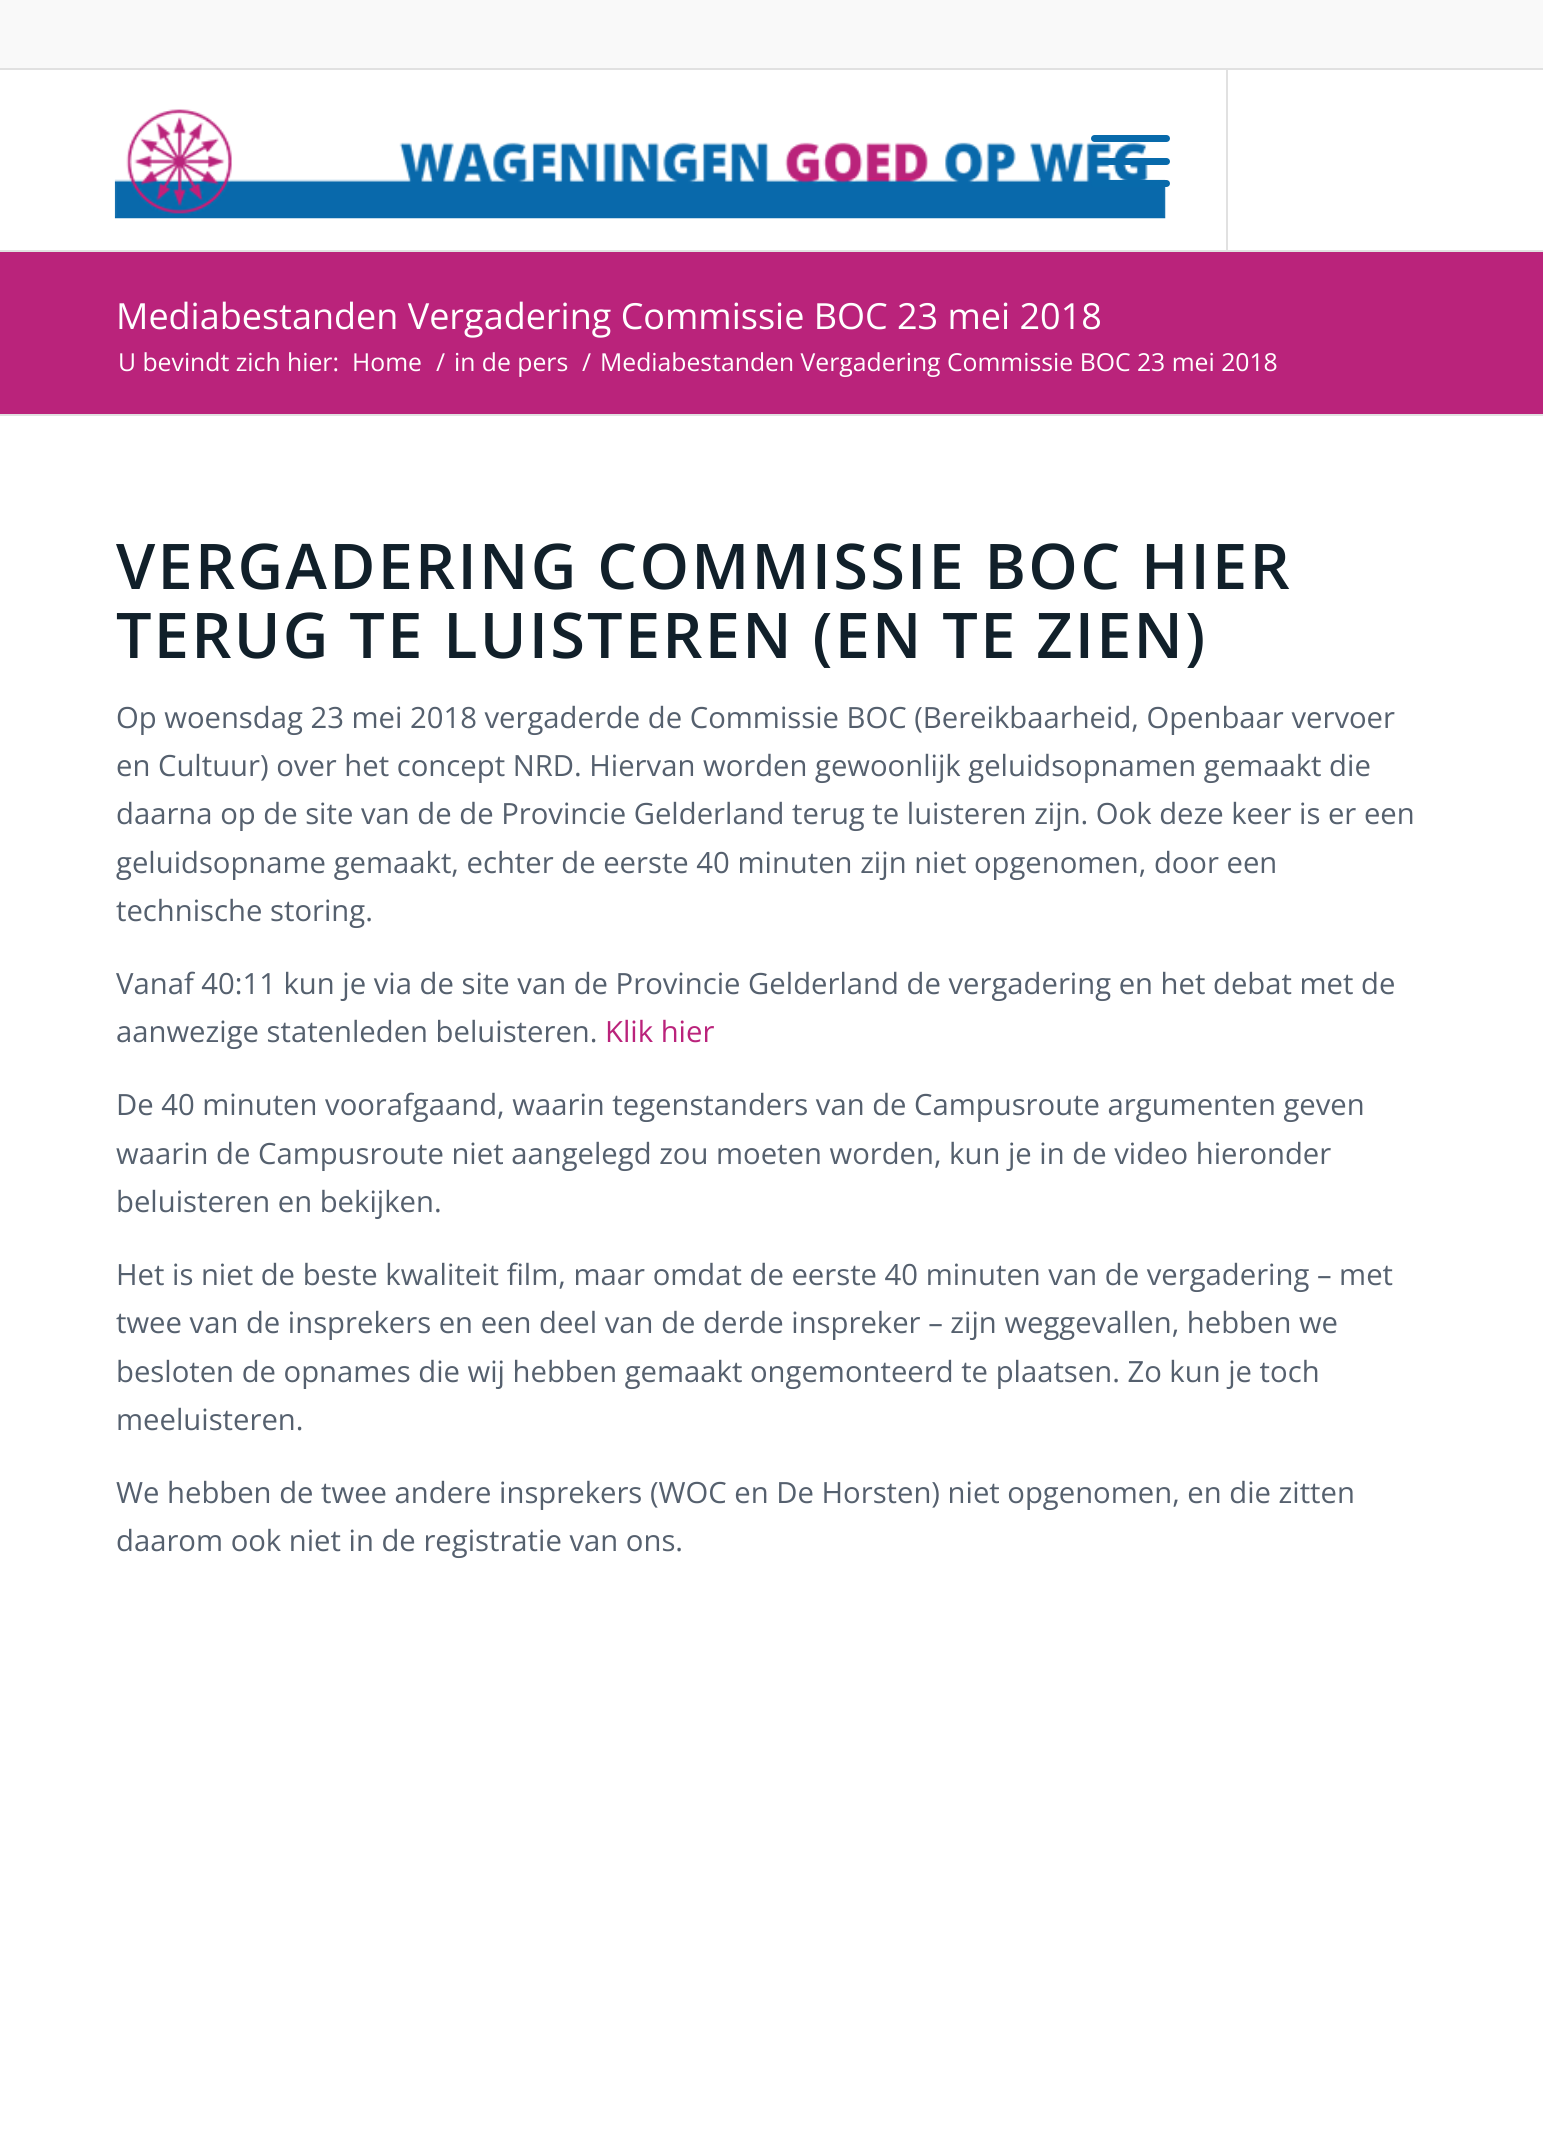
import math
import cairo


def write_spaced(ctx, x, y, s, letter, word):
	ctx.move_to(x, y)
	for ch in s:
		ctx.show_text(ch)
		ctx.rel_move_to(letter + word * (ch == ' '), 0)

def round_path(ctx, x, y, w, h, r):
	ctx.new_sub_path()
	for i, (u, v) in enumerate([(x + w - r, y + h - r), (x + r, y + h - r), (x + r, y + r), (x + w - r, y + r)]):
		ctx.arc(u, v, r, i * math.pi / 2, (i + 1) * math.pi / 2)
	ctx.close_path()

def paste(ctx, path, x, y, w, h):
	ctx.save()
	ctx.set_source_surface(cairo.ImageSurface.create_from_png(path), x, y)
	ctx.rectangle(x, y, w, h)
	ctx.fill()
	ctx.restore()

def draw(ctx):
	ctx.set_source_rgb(1, 1, 1)
	ctx.paint()
	ctx.set_source_rgb(0.973, 0.973, 0.973)
	ctx.rectangle(0, 0, 1543, 68)
	ctx.fill()
	ctx.set_source_rgb(0.882, 0.882, 0.882)
	ctx.rectangle(0, 68, 1543, 2)
	ctx.rectangle(0, 250, 1543, 2)
	ctx.rectangle(1226, 70, 2, 180)
	ctx.fill()
	paste(ctx, 'media/1.png', 114, 109, 1052, 110)
	ctx.set_source_rgb(0.035, 0.416, 0.671)
	round_path(ctx, 1091, 158, 79, 7, 3.5)
	ctx.fill()
	round_path(ctx, 1091, 135, 79, 7, 3.5)
	ctx.fill()
	round_path(ctx, 1091, 180, 79, 7, 3.5)
	ctx.fill()
	ctx.set_source_rgb(0.729, 0.137, 0.482)
	ctx.rectangle(0, 252, 1543, 162)
	ctx.fill()
	ctx.select_font_face('Open Sans')
	ctx.set_font_size(36)
	ctx.set_source_rgb(1, 1, 1)
	ctx.move_to(116, 329)
	ctx.show_text('Mediabestanden Vergadering Commissie BOC 23 mei 2018')
	ctx.set_font_size(24.75)
	for x, y, s in [
		(118, 371, 'U bevindt zich hier:'),
		(352, 371, 'Home'),
		(436, 371, '/'),
		(454, 371, 'in de pers'),
		(582, 371, '/'),
		(600, 371, 'Mediabestanden Vergadering Commissie BOC 23 mei 2018'),
	]:
		ctx.move_to(x, y)
		ctx.show_text(s)
	ctx.set_source_rgb(0.882, 0.882, 0.882)
	ctx.rectangle(0, 414, 1543, 2)
	ctx.fill()
	ctx.select_font_face('Open Sans SemiBold')
	ctx.set_font_size(63)
	ctx.set_source_rgb(0.067, 0.125, 0.165)
	write_spaced(ctx, 116, 589, 'VERGADERING COMMISSIE BOC HIER', 2.25, 0)
	write_spaced(ctx, 116, 658, 'TERUG TE LUISTEREN (EN TE ZIEN)', 2.25, 0)
	ctx.select_font_face('Open Sans')
	ctx.set_font_size(29.25)
	ctx.set_source_rgb(0.333, 0.376, 0.431)
	for x, y, s in [
		(116, 728, 'Op woensdag 23 mei 2018 vergaderde de Commissie BOC (Bereikbaarheid, Openbaar vervoer'),
		(116, 776, 'en Cultuur) over het concept NRD. Hiervan worden gewoonlijk geluidsopnamen gemaakt die'),
		(116, 824, 'daarna op de site van de de Provincie Gelderland terug te luisteren zijn. Ook deze keer is er een'),
		(116, 873, 'geluidsopname gemaakt, echter de eerste 40 minuten zijn niet opgenomen, door een'),
		(116, 921, 'technische storing.'),
		(116, 994, 'Vanaf 40:11 kun je via de site van de Provincie Gelderland de vergadering en het debat met de'),
		(116, 1042, 'aanwezige statenleden beluisteren.'),
	]:
		ctx.move_to(x, y)
		ctx.show_text(s)
	ctx.set_source_rgb(0.729, 0.137, 0.482)
	ctx.move_to(605, 1042)
	ctx.show_text('Klik hier')
	ctx.set_source_rgb(0.333, 0.376, 0.431)
	for x, y, s in [
		(116, 1115, 'De 40 minuten voorafgaand, waarin tegenstanders van de Campusroute argumenten geven'),
		(116, 1164, 'waarin de Campusroute niet aangelegd zou moeten worden, kun je in de video hieronder'),
		(116, 1212, 'beluisteren en bekijken.'),
		(116, 1285, 'Het is niet de beste kwaliteit film, maar omdat de eerste 40 minuten van de vergadering – met'),
		(116, 1333, 'twee van de insprekers en een deel van de derde inspreker – zijn weggevallen, hebben we'),
		(116, 1382, 'besloten de opnames die wij hebben gemaakt ongemonteerd te plaatsen. Zo kun je toch'),
		(116, 1430, 'meeluisteren.'),
		(116, 1503, 'We hebben de twee andere insprekers (WOC en De Horsten) niet opgenomen, en die zitten'),
		(116, 1551, 'daarom ook niet in de registratie van ons.'),
	]:
		ctx.move_to(x, y)
		ctx.show_text(s)


surface = cairo.ImageSurface(cairo.FORMAT_RGB24, 1543, 2129)
ctx = cairo.Context(surface)
options = cairo.FontOptions()
options.set_hint_metrics(cairo.HINT_METRICS_OFF)
options.set_hint_style(cairo.HINT_STYLE_NONE)
ctx.set_font_options(options)
ctx.set_miter_limit(4)
draw(ctx)
surface.write_to_png('image.png')
